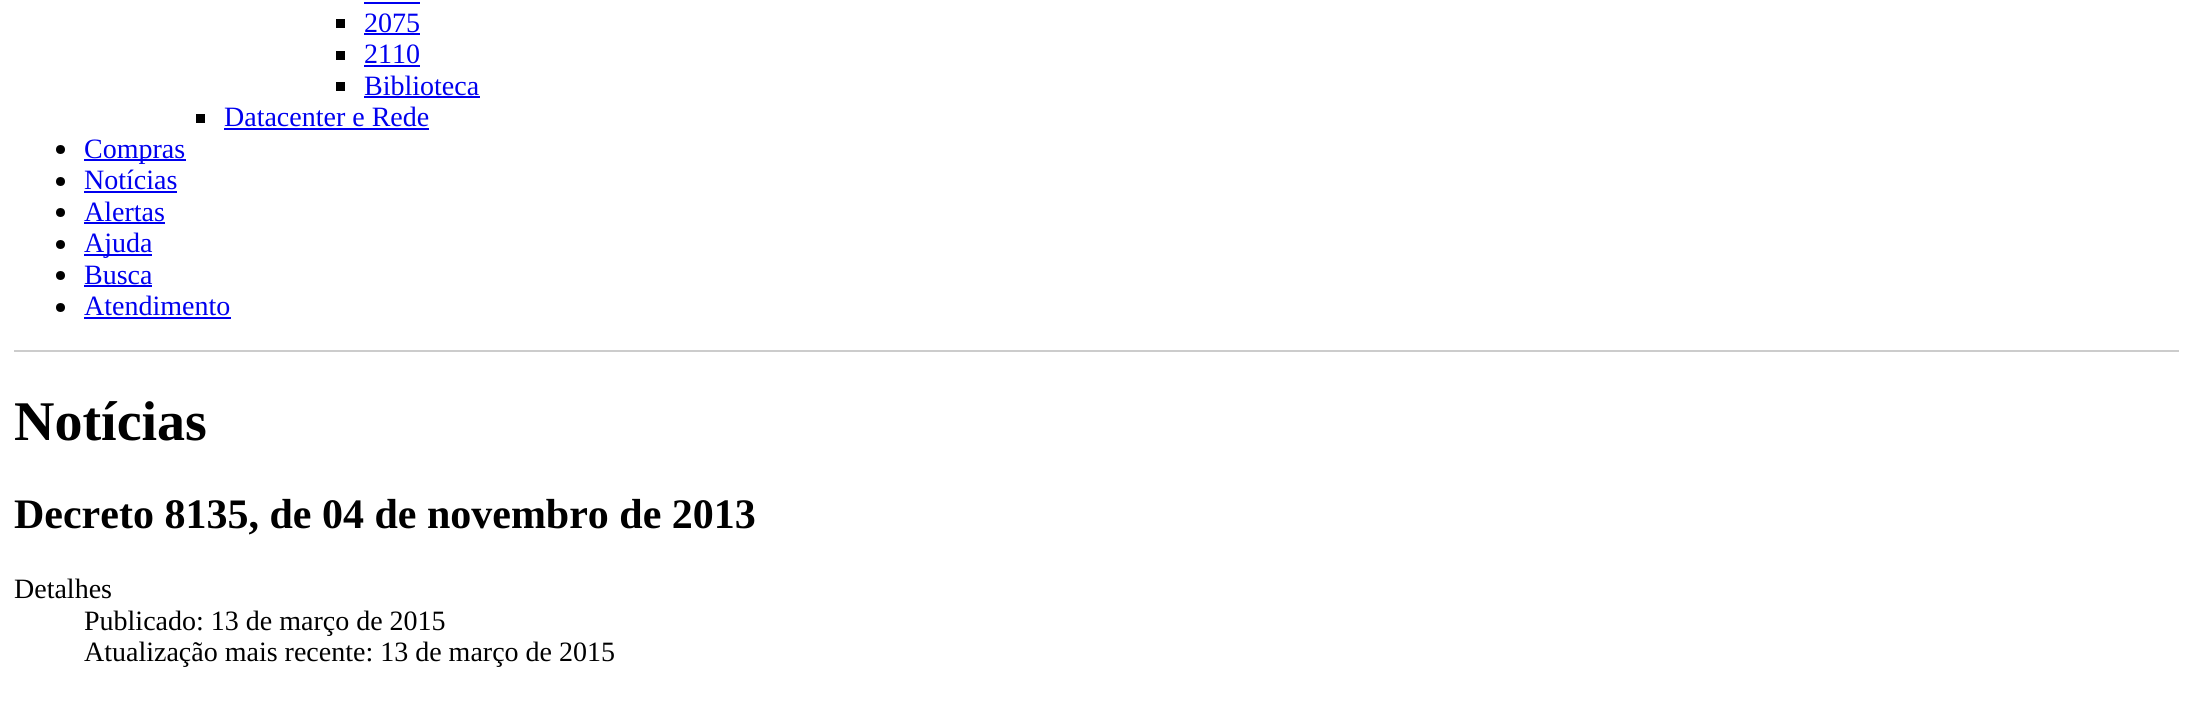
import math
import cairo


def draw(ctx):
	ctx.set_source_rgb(1, 1, 1)
	ctx.paint()
	ctx.set_source_rgb(0.8, 0.8, 0.8)
	ctx.rectangle(14, 350, 2165, 2)
	ctx.fill()
	ctx.set_source_rgb(0, 0, 0.933)
	ctx.rectangle(364, 2, 56, 2)
	ctx.fill()
	ctx.set_source_rgb(0, 0, 0)
	ctx.rectangle(336, 19, 9, 9)
	ctx.fill()
	ctx.select_font_face('Liberation Serif')
	ctx.set_font_size(28)
	ctx.set_source_rgb(0, 0, 0.933)
	ctx.move_to(364, 32)
	ctx.show_text('2075')
	ctx.rectangle(364, 33, 56, 2)
	ctx.fill()
	ctx.set_source_rgb(0, 0, 0)
	ctx.rectangle(336, 51, 9, 9)
	ctx.fill()
	ctx.set_source_rgb(0, 0, 0.933)
	ctx.move_to(364, 63)
	ctx.show_text('2110')
	ctx.rectangle(364, 65, 56, 2)
	ctx.fill()
	ctx.set_source_rgb(0, 0, 0)
	ctx.rectangle(336, 82, 9, 9)
	ctx.fill()
	ctx.set_source_rgb(0, 0, 0.933)
	ctx.move_to(364, 95)
	ctx.show_text('Biblioteca')
	ctx.rectangle(364, 96, 116, 2)
	ctx.fill()
	ctx.set_source_rgb(0, 0, 0)
	ctx.rectangle(196, 114, 9, 9)
	ctx.fill()
	ctx.set_source_rgb(0, 0, 0.933)
	ctx.move_to(224, 126)
	ctx.show_text('Datacenter e Rede')
	ctx.rectangle(224, 128, 205, 2)
	ctx.fill()
	ctx.set_source_rgb(0, 0, 0)
	ctx.arc(60.5, 149.5, 4.5, 0, 2 * math.pi)
	ctx.fill()
	ctx.set_source_rgb(0, 0, 0.933)
	ctx.rectangle(84, 159, 102, 2)
	ctx.fill()
	ctx.move_to(84, 158)
	ctx.show_text('Compras')
	ctx.set_source_rgb(0, 0, 0)
	ctx.new_path()
	ctx.arc(60.5, 181.5, 4.5, 0, 2 * math.pi)
	ctx.fill()
	ctx.set_source_rgb(0, 0, 0.933)
	ctx.move_to(84, 189)
	ctx.show_text('Notícias')
	ctx.rectangle(84, 191, 93, 2)
	ctx.fill()
	ctx.set_source_rgb(0, 0, 0)
	ctx.arc(60.5, 212.5, 4.5, 0, 2 * math.pi)
	ctx.fill()
	ctx.set_source_rgb(0, 0, 0.933)
	ctx.move_to(84, 221)
	ctx.show_text('Alertas')
	ctx.rectangle(84, 222, 81, 2)
	ctx.fill()
	ctx.set_source_rgb(0, 0, 0)
	ctx.arc(60.5, 244.5, 4.5, 0, 2 * math.pi)
	ctx.fill()
	ctx.set_source_rgb(0, 0, 0.933)
	ctx.rectangle(84, 254, 68, 2)
	ctx.fill()
	ctx.move_to(84, 252)
	ctx.show_text('Ajuda')
	ctx.set_source_rgb(0, 0, 0)
	ctx.new_path()
	ctx.arc(60.5, 275.5, 4.5, 0, 2 * math.pi)
	ctx.fill()
	ctx.set_source_rgb(0, 0, 0.933)
	ctx.move_to(84, 284)
	ctx.show_text('Busca')
	ctx.rectangle(84, 285, 68, 2)
	ctx.fill()
	ctx.set_source_rgb(0, 0, 0)
	ctx.arc(60.5, 307.5, 4.5, 0, 2 * math.pi)
	ctx.fill()
	ctx.set_source_rgb(0, 0, 0.933)
	ctx.move_to(84, 315)
	ctx.show_text('Atendimento')
	ctx.rectangle(84, 317, 147, 2)
	ctx.fill()
	ctx.select_font_face('Liberation Serif', cairo.FONT_SLANT_NORMAL, cairo.FONT_WEIGHT_BOLD)
	ctx.set_font_size(56)
	ctx.set_source_rgb(0, 0, 0)
	ctx.move_to(14, 440)
	ctx.show_text('Notícias')
	ctx.set_font_size(42)
	ctx.move_to(14, 528)
	ctx.show_text('Decreto 8135, de 04 de novembro de 2013')
	ctx.select_font_face('Liberation Serif')
	ctx.set_font_size(28)
	for x, y, s in [
		(14, 598, 'Detalhes'),
		(84, 630, 'Publicado: 13 de março de 2015'),
		(84, 661, 'Atualização mais recente: 13 de março de 2015'),
	]:
		ctx.move_to(x, y)
		ctx.show_text(s)


surface = cairo.ImageSurface(cairo.FORMAT_RGB24, 2192, 705)
ctx = cairo.Context(surface)
options = cairo.FontOptions()
options.set_hint_metrics(cairo.HINT_METRICS_OFF)
options.set_hint_style(cairo.HINT_STYLE_NONE)
ctx.set_font_options(options)
ctx.set_miter_limit(4)
draw(ctx)
surface.write_to_png('image.png')
